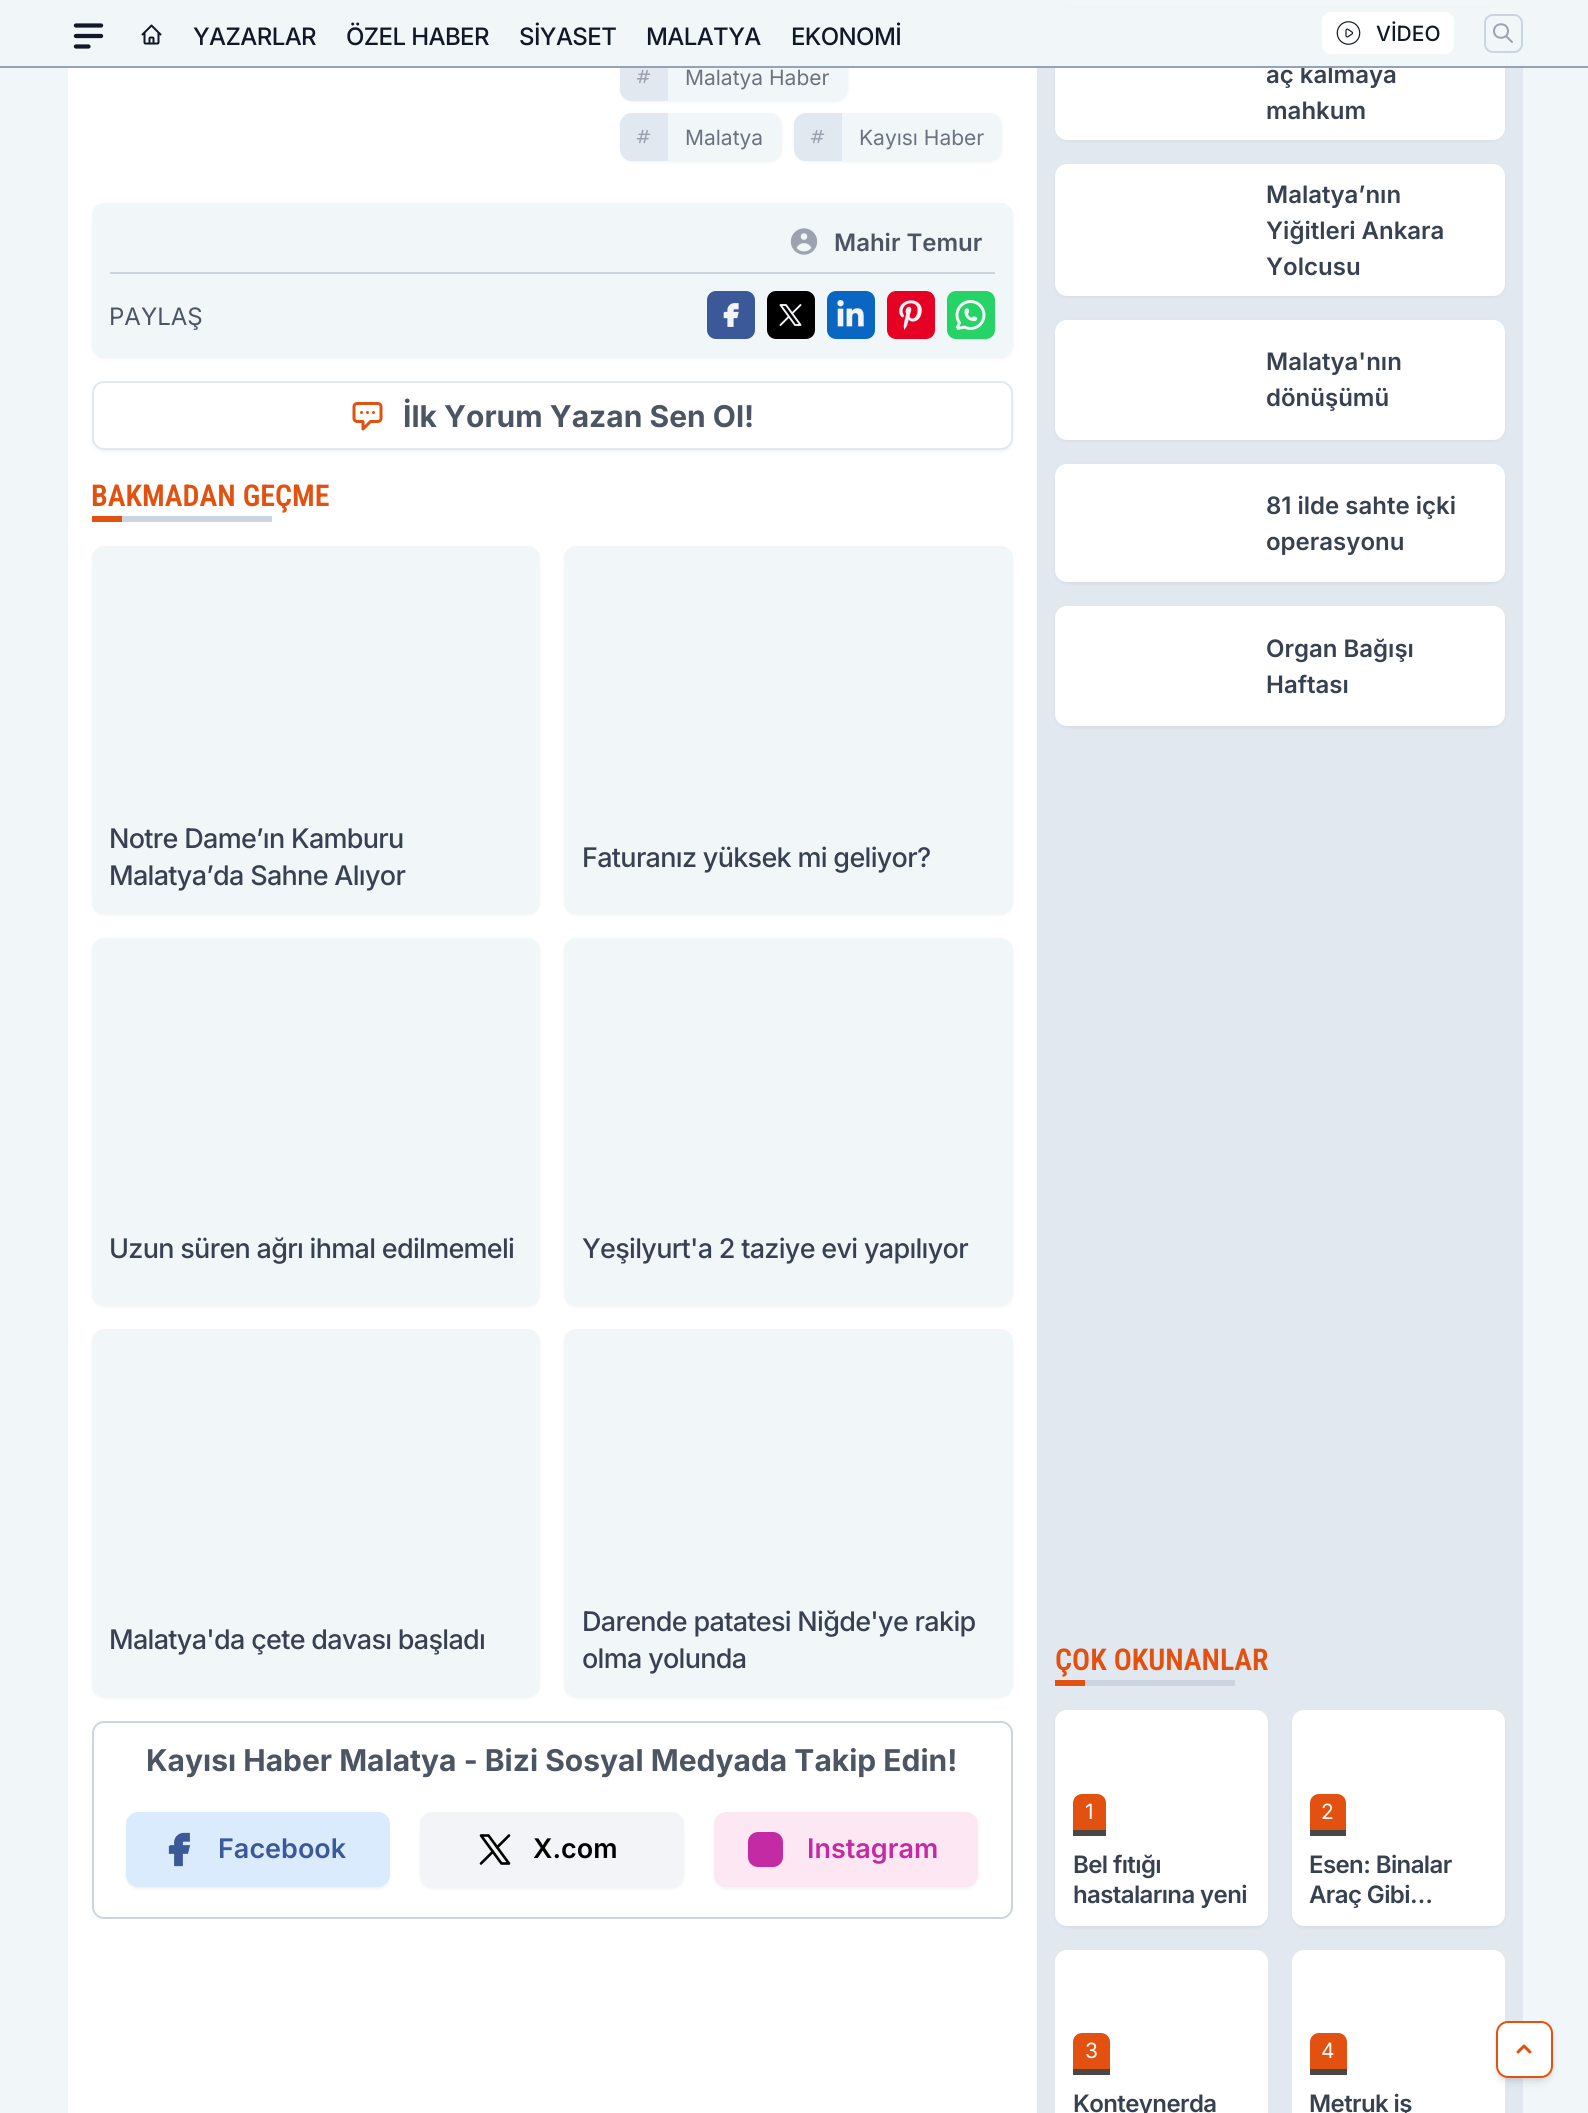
import math
import cairo


def write_spaced(ctx, x, y, s, letter, word):
	ctx.move_to(x, y)
	for ch in s:
		ctx.show_text(ch)
		ctx.rel_move_to(letter + word * (ch == ' '), 0)

def round_path(ctx, x, y, w, h, r):
	ctx.new_sub_path()
	for i, (u, v) in enumerate([(x + w - r, y + h - r), (x + r, y + h - r), (x + r, y + r), (x + w - r, y + r)]):
		ctx.arc(u, v, r, i * math.pi / 2, (i + 1) * math.pi / 2)
	ctx.close_path()

def blur_box(ctx, x, y, w, h, r, blur, alpha):
	ctx.push_group_with_content(cairo.CONTENT_ALPHA)
	ctx.set_operator(cairo.OPERATOR_SOURCE)
	for i in range(15, -16, -2):
		e = blur * i / 6
		if min(w, h) + 2 * e > 0:
			ctx.set_source_rgba(0, 0, 0, alpha * math.erfc((i - 1) / 8.5) / 2)
			round_path(ctx, x - e, y - e, w + 2 * e, h + 2 * e, max(0, min(r + e + blur * .6, min(w, h) / 2 + e)))
			ctx.fill()
	ctx.mask(ctx.pop_group())

def paste(ctx, path, x, y, w, h):
	ctx.save()
	ctx.set_source_surface(cairo.ImageSurface.create_from_png(path), x, y)
	ctx.rectangle(x, y, w, h)
	ctx.fill()
	ctx.restore()

def draw(ctx):
	ctx.set_source_rgb(0.945, 0.961, 0.976)
	ctx.paint()
	ctx.set_source_rgb(1, 1, 1)
	ctx.rectangle(68, 68, 969, 2045)
	ctx.fill()
	ctx.set_source_rgb(0, 0, 0)
	blur_box(ctx, 620, 54, 228, 48, 12, 1.5, 0.05)
	ctx.set_source_rgb(0.945, 0.961, 0.976)
	round_path(ctx, 620, 53, 228, 48, 12)
	ctx.fill()
	ctx.set_source_rgb(0.886, 0.91, 0.941)
	ctx.new_path()
	ctx.move_to(632, 53)
	ctx.line_to(668, 53)
	ctx.line_to(668, 101)
	ctx.line_to(632, 101)
	ctx.curve_to(625.5, 101, 620, 95.5, 620, 89)
	ctx.line_to(620, 65)
	ctx.curve_to(620, 58.5, 625.5, 53, 632, 53)
	ctx.close_path()
	ctx.fill()
	ctx.rectangle(1037, 68, 486, 2045)
	ctx.fill()
	ctx.set_source_rgb(0, 0, 0)
	blur_box(ctx, 1055, 9, 450, 132, 12, 1.5, 0.05)
	ctx.set_source_rgb(1, 1, 1)
	round_path(ctx, 1055, 8, 450, 132, 12)
	ctx.fill()
	ctx.select_font_face('Inter SemiBold')
	ctx.set_font_size(24)
	ctx.set_source_rgb(0.216, 0.255, 0.318)
	ctx.move_to(1266, 83)
	ctx.show_text('aç kalmaya')
	ctx.set_source_rgb(0.945, 0.961, 0.976)
	ctx.rectangle(619, 8, 887, 58)
	ctx.fill()
	ctx.set_source_rgb(0.58, 0.639, 0.722)
	ctx.rectangle(0, 66, 1588, 2)
	ctx.fill()
	paste(ctx, 'media/1.png', 73, 23, 31, 26)
	paste(ctx, 'media/2.png', 141, 24, 21, 21)
	ctx.select_font_face('Inter Medium')
	ctx.set_source_rgb(0.067, 0.094, 0.153)
	for x, y, s in [
		(193, 45, 'YAZARLAR'),
		(346, 45, 'ÖZEL HABER'),
		(519, 45, 'SİYASET'),
		(646, 45, 'MALATYA'),
		(791, 45, 'EKONOMİ'),
	]:
		write_spaced(ctx, x, y, s, -0.6, 0)
	ctx.set_source_rgb(1, 1, 1)
	round_path(ctx, 1322, 12, 132, 42, 9)
	ctx.fill()
	paste(ctx, 'media/3.png', 1336, 21, 25, 24)
	ctx.set_font_size(21)
	ctx.set_source_rgb(0.067, 0.094, 0.153)
	ctx.move_to(1376, 41)
	ctx.show_text('VİDEO')
	round_path(ctx, 1485, 15, 37, 37, 8)
	ctx.set_source_rgb(0.796, 0.835, 0.882)
	ctx.stroke()
	ctx.new_path()
	ctx.move_to(1512, 42)
	ctx.line_to(1506, 36)
	ctx.move_to(1508, 31)
	ctx.curve_to(1508, 40, 1494, 40, 1494, 31)
	ctx.curve_to(1494, 22, 1508, 22, 1508, 31)
	ctx.close_path()
	ctx.set_source_rgb(0.612, 0.639, 0.686)
	ctx.set_line_cap(cairo.LINE_CAP_ROUND)
	ctx.set_line_join(cairo.LINE_JOIN_ROUND)
	ctx.stroke()
	paste(ctx, 'media/4.png', 636, 69, 15, 15)
	ctx.select_font_face('Inter')
	ctx.set_source_rgb(0.42, 0.447, 0.502)
	ctx.move_to(685, 85)
	ctx.show_text('Malatya Haber')
	ctx.set_source_rgb(0, 0, 0)
	blur_box(ctx, 620, 114, 162, 48, 12, 1.5, 0.05)
	ctx.set_source_rgb(0.945, 0.961, 0.976)
	round_path(ctx, 620, 113, 162, 48, 12)
	ctx.fill()
	ctx.set_source_rgb(0.886, 0.91, 0.941)
	ctx.new_path()
	ctx.move_to(632, 113)
	ctx.line_to(668, 113)
	ctx.line_to(668, 161)
	ctx.line_to(632, 161)
	ctx.curve_to(625.5, 161, 620, 155.5, 620, 149)
	ctx.line_to(620, 125)
	ctx.curve_to(620, 118.5, 625.5, 113, 632, 113)
	ctx.close_path()
	ctx.fill()
	paste(ctx, 'media/4.png', 636, 129, 15, 15)
	ctx.set_source_rgb(0.42, 0.447, 0.502)
	ctx.move_to(685, 145)
	ctx.show_text('Malatya')
	ctx.set_source_rgb(0, 0, 0)
	blur_box(ctx, 794, 114, 208, 48, 12, 1.5, 0.05)
	ctx.set_source_rgb(0.945, 0.961, 0.976)
	round_path(ctx, 794, 113, 208, 48, 12)
	ctx.fill()
	ctx.set_source_rgb(0.886, 0.91, 0.941)
	ctx.new_path()
	ctx.move_to(806, 113)
	ctx.line_to(842, 113)
	ctx.line_to(842, 161)
	ctx.line_to(806, 161)
	ctx.curve_to(799.5, 161, 794, 155.5, 794, 149)
	ctx.line_to(794, 125)
	ctx.curve_to(794, 118.5, 799.5, 113, 806, 113)
	ctx.close_path()
	ctx.fill()
	paste(ctx, 'media/4.png', 810, 129, 15, 15)
	ctx.set_source_rgb(0.42, 0.447, 0.502)
	ctx.move_to(859, 145)
	ctx.show_text('Kayısı Haber')
	ctx.set_source_rgb(0, 0, 0)
	blur_box(ctx, 92, 204, 921, 155, 12, 1.5, 0.05)
	ctx.set_source_rgb(0.945, 0.961, 0.976)
	round_path(ctx, 92, 203, 921, 154, 12)
	ctx.fill()
	ctx.set_source_rgb(0.796, 0.835, 0.882)
	ctx.rectangle(110, 272, 885, 2)
	ctx.fill()
	paste(ctx, 'media/5.png', 790, 228, 28, 27)
	ctx.select_font_face('Inter SemiBold')
	ctx.set_font_size(24)
	ctx.set_source_rgb(0.294, 0.333, 0.388)
	ctx.move_to(834, 251)
	ctx.show_text('Mahir Temur')
	ctx.select_font_face('Inter')
	ctx.move_to(109, 325)
	ctx.show_text('PAYLAŞ')
	ctx.set_source_rgb(0.231, 0.349, 0.596)
	round_path(ctx, 707, 291, 48, 48, 9)
	ctx.fill()
	paste(ctx, 'media/6.png', 723, 303, 16, 24)
	ctx.set_source_rgb(0, 0, 0)
	round_path(ctx, 767, 291, 48, 48, 9)
	ctx.fill()
	ctx.new_path()
	ctx.move_to(780.5, 305)
	ctx.line_to(795, 325)
	ctx.line_to(800.5, 325)
	ctx.line_to(786, 305)
	ctx.close_path()
	ctx.move_to(780.5, 325)
	ctx.line_to(789, 316.5)
	ctx.move_to(792, 313.5)
	ctx.line_to(800.5, 305)
	ctx.set_source_rgb(0.953, 0.957, 0.965)
	ctx.set_line_width(1.9)
	ctx.stroke()
	ctx.set_source_rgb(0.039, 0.4, 0.761)
	round_path(ctx, 827, 291, 48, 48, 9)
	ctx.fill()
	paste(ctx, 'media/7.png', 837, 300, 27, 27)
	ctx.set_source_rgb(0.902, 0, 0.137)
	round_path(ctx, 887, 291, 48, 48, 9)
	ctx.fill()
	paste(ctx, 'media/8.png', 899, 300, 23, 30)
	ctx.set_source_rgb(0.145, 0.827, 0.4)
	round_path(ctx, 947, 291, 48, 48, 9)
	ctx.fill()
	paste(ctx, 'media/9.png', 955, 300, 31, 30)
	ctx.set_source_rgb(0, 0, 0)
	blur_box(ctx, 92, 383, 921, 69, 12, 1.5, 0.05)
	ctx.set_source_rgb(1, 1, 1)
	round_path(ctx, 93, 382, 919, 67, 11)
	ctx.fill_preserve()
	ctx.set_source_rgb(0.886, 0.91, 0.941)
	ctx.set_line_width(2)
	ctx.set_line_cap(cairo.LINE_CAP_BUTT)
	ctx.set_line_join(cairo.LINE_JOIN_MITER)
	ctx.stroke()
	paste(ctx, 'media/10.png', 352, 402, 31, 29)
	ctx.select_font_face('Inter', cairo.FONT_SLANT_NORMAL, cairo.FONT_WEIGHT_BOLD)
	ctx.set_font_size(30)
	ctx.set_source_rgb(0.294, 0.333, 0.388)
	ctx.move_to(403, 427)
	ctx.show_text('İlk Yorum Yazan Sen Ol!')
	ctx.select_font_face('Roboto Condensed SemiBold')
	ctx.set_source_rgb(0.89, 0.318, 0.063)
	ctx.move_to(91, 506)
	ctx.show_text('BAKMADAN GEÇME')
	ctx.rectangle(92, 516, 30, 6)
	ctx.fill()
	ctx.set_source_rgb(0.796, 0.835, 0.882)
	ctx.rectangle(122, 516, 150, 6)
	ctx.fill()
	ctx.set_source_rgb(0, 0, 0)
	blur_box(ctx, 92, 548, 448, 367, 12, 1.5, 0.05)
	ctx.set_source_rgb(0.945, 0.961, 0.976)
	round_path(ctx, 92, 546, 448, 368, 12)
	ctx.fill()
	ctx.select_font_face('Inter Medium')
	ctx.set_font_size(27)
	ctx.set_source_rgb(0.216, 0.255, 0.318)
	write_spaced(ctx, 109, 848, 'Notre Dame’ın Kamburu', -0.7, 0)
	write_spaced(ctx, 109, 885, 'Malatya’da Sahne Alıyor', -0.7, 0)
	ctx.set_source_rgb(0, 0, 0)
	blur_box(ctx, 564, 548, 449, 367, 12, 1.5, 0.05)
	ctx.set_source_rgb(0.945, 0.961, 0.976)
	round_path(ctx, 564, 546, 449, 368, 12)
	ctx.fill()
	ctx.set_source_rgb(0.216, 0.255, 0.318)
	write_spaced(ctx, 582, 867, 'Faturanız yüksek mi geliyor?', -0.7, 0)
	ctx.set_source_rgb(0, 0, 0)
	blur_box(ctx, 92, 939, 448, 368, 12, 1.5, 0.05)
	ctx.set_source_rgb(0.945, 0.961, 0.976)
	round_path(ctx, 92, 938, 448, 367, 12)
	ctx.fill()
	ctx.set_source_rgb(0.216, 0.255, 0.318)
	write_spaced(ctx, 109, 1258, 'Uzun süren ağrı ihmal edilmemeli', -0.7, 0)
	ctx.set_source_rgb(0, 0, 0)
	blur_box(ctx, 564, 939, 449, 368, 12, 1.5, 0.05)
	ctx.set_source_rgb(0.945, 0.961, 0.976)
	round_path(ctx, 564, 938, 449, 367, 12)
	ctx.fill()
	ctx.set_source_rgb(0.216, 0.255, 0.318)
	write_spaced(ctx, 582, 1258, 'Yeşilyurt\'a 2 taziye evi yapılıyor', -0.7, 0)
	ctx.set_source_rgb(0, 0, 0)
	blur_box(ctx, 92, 1331, 448, 367, 12, 1.5, 0.05)
	ctx.set_source_rgb(0.945, 0.961, 0.976)
	round_path(ctx, 92, 1329, 448, 368, 12)
	ctx.fill()
	ctx.set_source_rgb(0.216, 0.255, 0.318)
	write_spaced(ctx, 109, 1649, 'Malatya\'da çete davası başladı', -0.7, 0)
	ctx.set_source_rgb(0, 0, 0)
	blur_box(ctx, 564, 1331, 449, 367, 12, 1.5, 0.05)
	ctx.set_source_rgb(0.945, 0.961, 0.976)
	round_path(ctx, 564, 1329, 449, 368, 12)
	ctx.fill()
	ctx.set_source_rgb(0.216, 0.255, 0.318)
	write_spaced(ctx, 582, 1631, 'Darende patatesi Niğde\'ye rakip', -0.7, 0)
	write_spaced(ctx, 582, 1668, 'olma yolunda', -0.7, 0)
	round_path(ctx, 93, 1722, 919, 196, 11)
	ctx.set_source_rgb(0.796, 0.835, 0.882)
	ctx.stroke()
	ctx.select_font_face('Inter', cairo.FONT_SLANT_NORMAL, cairo.FONT_WEIGHT_BOLD)
	ctx.set_font_size(30)
	ctx.set_source_rgb(0.294, 0.333, 0.388)
	ctx.move_to(146, 1771)
	ctx.show_text('Kayısı Haber Malatya - Bizi Sosyal Medyada Takip Edin!')
	ctx.set_source_rgb(0, 0, 0)
	blur_box(ctx, 126, 1814, 264, 75, 12, 1.5, 0.05)
	ctx.set_source_rgb(0.859, 0.918, 0.996)
	round_path(ctx, 126, 1812, 264, 75, 12)
	ctx.fill()
	paste(ctx, 'media/11.png', 168, 1832, 23, 35)
	ctx.select_font_face('Inter SemiBold')
	ctx.set_font_size(27)
	ctx.set_source_rgb(0.231, 0.349, 0.596)
	ctx.move_to(218, 1858)
	ctx.show_text('Facebook')
	ctx.set_source_rgb(0, 0, 0)
	blur_box(ctx, 420, 1814, 264, 75, 12, 1.5, 0.05)
	ctx.set_source_rgb(0.953, 0.957, 0.965)
	round_path(ctx, 420, 1812, 264, 75, 12)
	ctx.fill()
	ctx.new_path()
	ctx.move_to(481, 1835.5)
	ctx.line_to(501.5, 1863.5)
	ctx.line_to(509, 1863.5)
	ctx.line_to(488.5, 1835.5)
	ctx.close_path()
	ctx.move_to(481, 1863.5)
	ctx.line_to(493, 1851.5)
	ctx.move_to(497, 1847.5)
	ctx.line_to(509, 1835.5)
	ctx.set_source_rgb(0, 0, 0)
	ctx.set_line_width(2.6)
	ctx.set_line_cap(cairo.LINE_CAP_ROUND)
	ctx.set_line_join(cairo.LINE_JOIN_ROUND)
	ctx.stroke()
	ctx.move_to(533, 1858)
	ctx.show_text('X.com')
	ctx.set_source_rgb(0, 0, 0)
	blur_box(ctx, 714, 1814, 264, 75, 12, 1.5, 0.05)
	ctx.set_source_rgb(0.988, 0.906, 0.953)
	round_path(ctx, 714, 1812, 264, 75, 12)
	ctx.fill()
	ctx.set_source_rgb(0.765, 0.165, 0.639)
	ctx.new_path()
	ctx.move_to(758, 1832)
	ctx.curve_to(752.5, 1832, 748, 1836.5, 748, 1842)
	ctx.line_to(748, 1857)
	ctx.curve_to(748, 1862.5, 752.5, 1867, 758, 1867)
	ctx.line_to(773, 1867)
	ctx.curve_to(778.5, 1867, 783, 1862.5, 783, 1857)
	ctx.line_to(783, 1842)
	ctx.curve_to(783, 1836.5, 778.5, 1832, 773, 1832)
	ctx.close_path()
	ctx.fill()
	ctx.move_to(807, 1858)
	ctx.show_text('Instagram')
	ctx.set_font_size(24)
	ctx.set_source_rgb(0.216, 0.255, 0.318)
	ctx.move_to(1266, 119)
	ctx.show_text('mahkum')
	ctx.set_source_rgb(0, 0, 0)
	blur_box(ctx, 1055, 165, 450, 132, 12, 1.5, 0.05)
	ctx.set_source_rgb(1, 1, 1)
	round_path(ctx, 1055, 164, 450, 132, 12)
	ctx.fill()
	ctx.set_source_rgb(0.216, 0.255, 0.318)
	for x, y, s in [
		(1266, 203, 'Malatya’nın'),
		(1266, 239, 'Yiğitleri Ankara'),
		(1266, 275, 'Yolcusu'),
	]:
		ctx.move_to(x, y)
		ctx.show_text(s)
	ctx.set_source_rgb(0, 0, 0)
	blur_box(ctx, 1055, 321, 450, 120, 12, 1.5, 0.05)
	ctx.set_source_rgb(1, 1, 1)
	round_path(ctx, 1055, 320, 450, 120, 12)
	ctx.fill()
	ctx.set_source_rgb(0.216, 0.255, 0.318)
	ctx.move_to(1266, 370)
	ctx.show_text('Malatya\'nın')
	ctx.move_to(1266, 406)
	ctx.show_text('dönüşümü')
	ctx.set_source_rgb(0, 0, 0)
	blur_box(ctx, 1055, 465, 450, 119, 12, 1.5, 0.05)
	ctx.set_source_rgb(1, 1, 1)
	round_path(ctx, 1055, 464, 450, 118, 12)
	ctx.fill()
	ctx.set_source_rgb(0.216, 0.255, 0.318)
	ctx.move_to(1266, 514)
	ctx.show_text('81 ilde sahte içki')
	ctx.move_to(1266, 550)
	ctx.show_text('operasyonu')
	ctx.set_source_rgb(0, 0, 0)
	blur_box(ctx, 1055, 608, 450, 120, 12, 1.5, 0.05)
	ctx.set_source_rgb(1, 1, 1)
	round_path(ctx, 1055, 606, 450, 120, 12)
	ctx.fill()
	ctx.set_source_rgb(0.216, 0.255, 0.318)
	ctx.move_to(1266, 657)
	ctx.show_text('Organ Bağışı')
	ctx.move_to(1266, 693)
	ctx.show_text('Haftası')
	ctx.select_font_face('Roboto Condensed SemiBold')
	ctx.set_font_size(30)
	ctx.set_source_rgb(0.89, 0.318, 0.063)
	ctx.move_to(1055, 1670)
	ctx.show_text('ÇOK OKUNANLAR')
	ctx.rectangle(1055, 1680, 30, 6)
	ctx.fill()
	ctx.set_source_rgb(0.796, 0.835, 0.882)
	ctx.rectangle(1085, 1680, 150, 6)
	ctx.fill()
	ctx.set_source_rgb(0, 0, 0)
	blur_box(ctx, 1055, 1712, 213, 216, 12, 1.5, 0.05)
	ctx.set_source_rgb(1, 1, 1)
	round_path(ctx, 1055, 1710, 213, 216, 12)
	ctx.fill()
	ctx.set_source_rgb(0.89, 0.318, 0.063)
	ctx.new_path()
	ctx.move_to(1082, 1794)
	ctx.line_to(1097, 1794)
	ctx.curve_to(1102, 1794, 1106, 1798, 1106, 1803)
	ctx.line_to(1106, 1830)
	ctx.line_to(1073, 1830)
	ctx.line_to(1073, 1803)
	ctx.curve_to(1073, 1798, 1077, 1794, 1082, 1794)
	ctx.close_path()
	ctx.fill()
	ctx.set_source_rgb(0.282, 0.282, 0.282)
	ctx.rectangle(1073, 1830, 33, 6)
	ctx.fill()
	ctx.select_font_face('Inter')
	ctx.set_font_size(21)
	ctx.set_source_rgb(1, 1, 1)
	ctx.move_to(1085, 1819)
	ctx.show_text('1')
	ctx.select_font_face('Inter SemiBold')
	ctx.set_font_size(24)
	ctx.set_source_rgb(0.216, 0.255, 0.318)
	write_spaced(ctx, 1073, 1873, 'Bel fıtığı', -0.6, 0)
	write_spaced(ctx, 1073, 1903, 'hastalarına yeni', -0.6, 0)
	ctx.set_source_rgb(0, 0, 0)
	blur_box(ctx, 1292, 1712, 213, 216, 12, 1.5, 0.05)
	ctx.set_source_rgb(1, 1, 1)
	round_path(ctx, 1292, 1710, 213, 216, 12)
	ctx.fill()
	ctx.set_source_rgb(0.89, 0.318, 0.063)
	ctx.new_path()
	ctx.move_to(1319, 1794)
	ctx.line_to(1337, 1794)
	ctx.curve_to(1342, 1794, 1346, 1798, 1346, 1803)
	ctx.line_to(1346, 1830)
	ctx.line_to(1310, 1830)
	ctx.line_to(1310, 1803)
	ctx.curve_to(1310, 1798, 1314, 1794, 1319, 1794)
	ctx.close_path()
	ctx.fill()
	ctx.set_source_rgb(0.282, 0.282, 0.282)
	ctx.rectangle(1310, 1830, 36, 6)
	ctx.fill()
	ctx.select_font_face('Inter')
	ctx.set_font_size(21)
	ctx.set_source_rgb(1, 1, 1)
	ctx.move_to(1321, 1819)
	ctx.show_text('2')
	ctx.select_font_face('Inter SemiBold')
	ctx.set_font_size(24)
	ctx.set_source_rgb(0.216, 0.255, 0.318)
	write_spaced(ctx, 1309, 1873, 'Esen: Binalar', -0.6, 0)
	write_spaced(ctx, 1309, 1903, 'Araç Gibi…', -0.6, 0)
	ctx.set_source_rgb(1, 1, 1)
	round_path(ctx, 1055, 1950, 213, 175, 12)
	ctx.fill()
	ctx.set_source_rgb(0.89, 0.318, 0.063)
	ctx.new_path()
	ctx.move_to(1082, 2033)
	ctx.line_to(1101, 2033)
	ctx.curve_to(1106, 2033, 1110, 2037, 1110, 2042)
	ctx.line_to(1110, 2069)
	ctx.line_to(1073, 2069)
	ctx.line_to(1073, 2042)
	ctx.curve_to(1073, 2037, 1077, 2033, 1082, 2033)
	ctx.close_path()
	ctx.fill()
	ctx.set_source_rgb(0.282, 0.282, 0.282)
	ctx.rectangle(1073, 2069, 37, 6)
	ctx.fill()
	ctx.select_font_face('Inter')
	ctx.set_font_size(21)
	ctx.set_source_rgb(1, 1, 1)
	ctx.move_to(1085, 2058)
	ctx.show_text('3')
	ctx.select_font_face('Inter SemiBold')
	ctx.set_font_size(24)
	ctx.set_source_rgb(0.216, 0.255, 0.318)
	write_spaced(ctx, 1073, 2112, 'Konteynerda', -0.6, 0)
	ctx.set_source_rgb(1, 1, 1)
	round_path(ctx, 1292, 1950, 213, 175, 12)
	ctx.fill()
	ctx.set_source_rgb(0.89, 0.318, 0.063)
	ctx.new_path()
	ctx.move_to(1319, 2033)
	ctx.line_to(1338, 2033)
	ctx.curve_to(1343, 2033, 1347, 2037, 1347, 2042)
	ctx.line_to(1347, 2069)
	ctx.line_to(1310, 2069)
	ctx.line_to(1310, 2042)
	ctx.curve_to(1310, 2037, 1314, 2033, 1319, 2033)
	ctx.close_path()
	ctx.fill()
	ctx.set_source_rgb(0.282, 0.282, 0.282)
	ctx.rectangle(1310, 2069, 37, 6)
	ctx.fill()
	ctx.select_font_face('Inter')
	ctx.set_font_size(21)
	ctx.set_source_rgb(1, 1, 1)
	ctx.move_to(1321, 2058)
	ctx.show_text('4')
	ctx.select_font_face('Inter SemiBold')
	ctx.set_font_size(24)
	ctx.set_source_rgb(0.216, 0.255, 0.318)
	write_spaced(ctx, 1309, 2112, 'Metruk iş', -0.6, 0)
	ctx.set_source_rgb(0, 0, 0)
	blur_box(ctx, 1499, 2027, 51, 51, 9, 3, 0.1)
	blur_box(ctx, 1497, 2028, 54, 54, 11, 4.5, 0.1)
	ctx.set_source_rgb(1, 1, 1)
	round_path(ctx, 1497, 2022, 55, 55, 11)
	ctx.fill_preserve()
	ctx.set_source_rgb(0.89, 0.318, 0.063)
	ctx.set_line_width(2)
	ctx.set_line_cap(cairo.LINE_CAP_BUTT)
	ctx.set_line_join(cairo.LINE_JOIN_MITER)
	ctx.stroke()
	paste(ctx, 'media/12.png', 1516, 2044, 16, 10)


surface = cairo.ImageSurface(cairo.FORMAT_RGB24, 1588, 2113)
ctx = cairo.Context(surface)
options = cairo.FontOptions()
options.set_hint_metrics(cairo.HINT_METRICS_OFF)
options.set_hint_style(cairo.HINT_STYLE_NONE)
ctx.set_font_options(options)
ctx.set_miter_limit(4)
draw(ctx)
surface.write_to_png('image.png')
